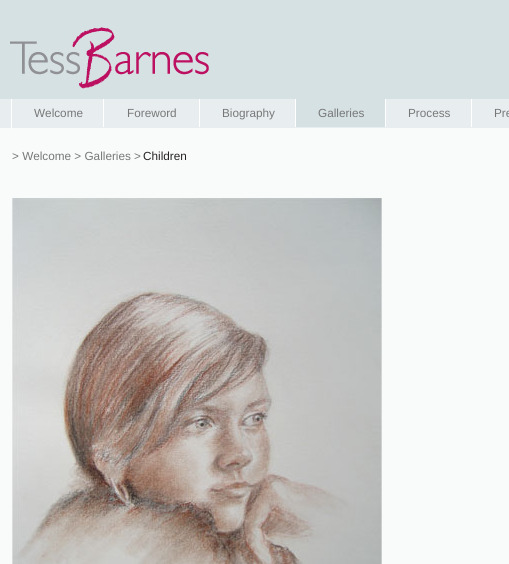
import math
import cairo


def paste(ctx, path, x, y, w, h):
	ctx.save()
	ctx.set_source_surface(cairo.ImageSurface.create_from_png(path), x, y)
	ctx.rectangle(x, y, w, h)
	ctx.fill()
	ctx.restore()

def draw(ctx):
	ctx.set_source_rgb(0.976, 0.984, 0.98)
	ctx.paint()
	paste(ctx, 'media/1.png', 0, 0, 509, 128)
	paste(ctx, 'media/2.png', 10, 27, 199, 62)
	ctx.set_source_rgb(1, 1, 1)
	ctx.rectangle(11, 99, 1, 30)
	ctx.fill()
	ctx.rectangle(103, 99, 1, 28)
	ctx.fill()
	ctx.select_font_face('Liberation Sans')
	ctx.set_font_size(11.75)
	ctx.set_source_rgb(0.467, 0.467, 0.467)
	ctx.move_to(34, 117)
	ctx.show_text('Welcome')
	ctx.set_source_rgb(1, 1, 1)
	ctx.rectangle(199, 99, 1, 28)
	ctx.fill()
	ctx.set_source_rgb(0.467, 0.467, 0.467)
	ctx.move_to(127, 117)
	ctx.show_text('Foreword')
	ctx.set_source_rgb(1, 1, 1)
	ctx.rectangle(295, 99, 1, 28)
	ctx.fill()
	ctx.set_source_rgb(0.467, 0.467, 0.467)
	ctx.move_to(222, 117)
	ctx.show_text('Biography')
	ctx.set_source_rgb(0.839, 0.882, 0.89)
	ctx.rectangle(296, 99, 89, 28)
	ctx.fill()
	ctx.set_source_rgb(1, 1, 1)
	ctx.rectangle(385, 99, 1, 28)
	ctx.fill()
	ctx.set_source_rgb(0.467, 0.467, 0.467)
	ctx.move_to(318, 117)
	ctx.show_text('Galleries')
	ctx.set_source_rgb(1, 1, 1)
	ctx.rectangle(471, 99, 1, 28)
	ctx.fill()
	ctx.set_source_rgb(0.467, 0.467, 0.467)
	for x, y, s in [
		(408, 117, 'Process'),
		(494, 117, 'Pre'),
		(12, 160, '> Welcome > Galleries >'),
	]:
		ctx.move_to(x, y)
		ctx.show_text(s)
	ctx.set_source_rgb(0.145, 0.137, 0.141)
	ctx.move_to(143, 160)
	ctx.show_text('Children')
	paste(ctx, 'media/3.png', 12, 198, 370, 366)


surface = cairo.ImageSurface(cairo.FORMAT_RGB24, 509, 564)
ctx = cairo.Context(surface)
options = cairo.FontOptions()
options.set_hint_metrics(cairo.HINT_METRICS_OFF)
options.set_hint_style(cairo.HINT_STYLE_NONE)
ctx.set_font_options(options)
ctx.set_miter_limit(4)
draw(ctx)
surface.write_to_png('image.png')
